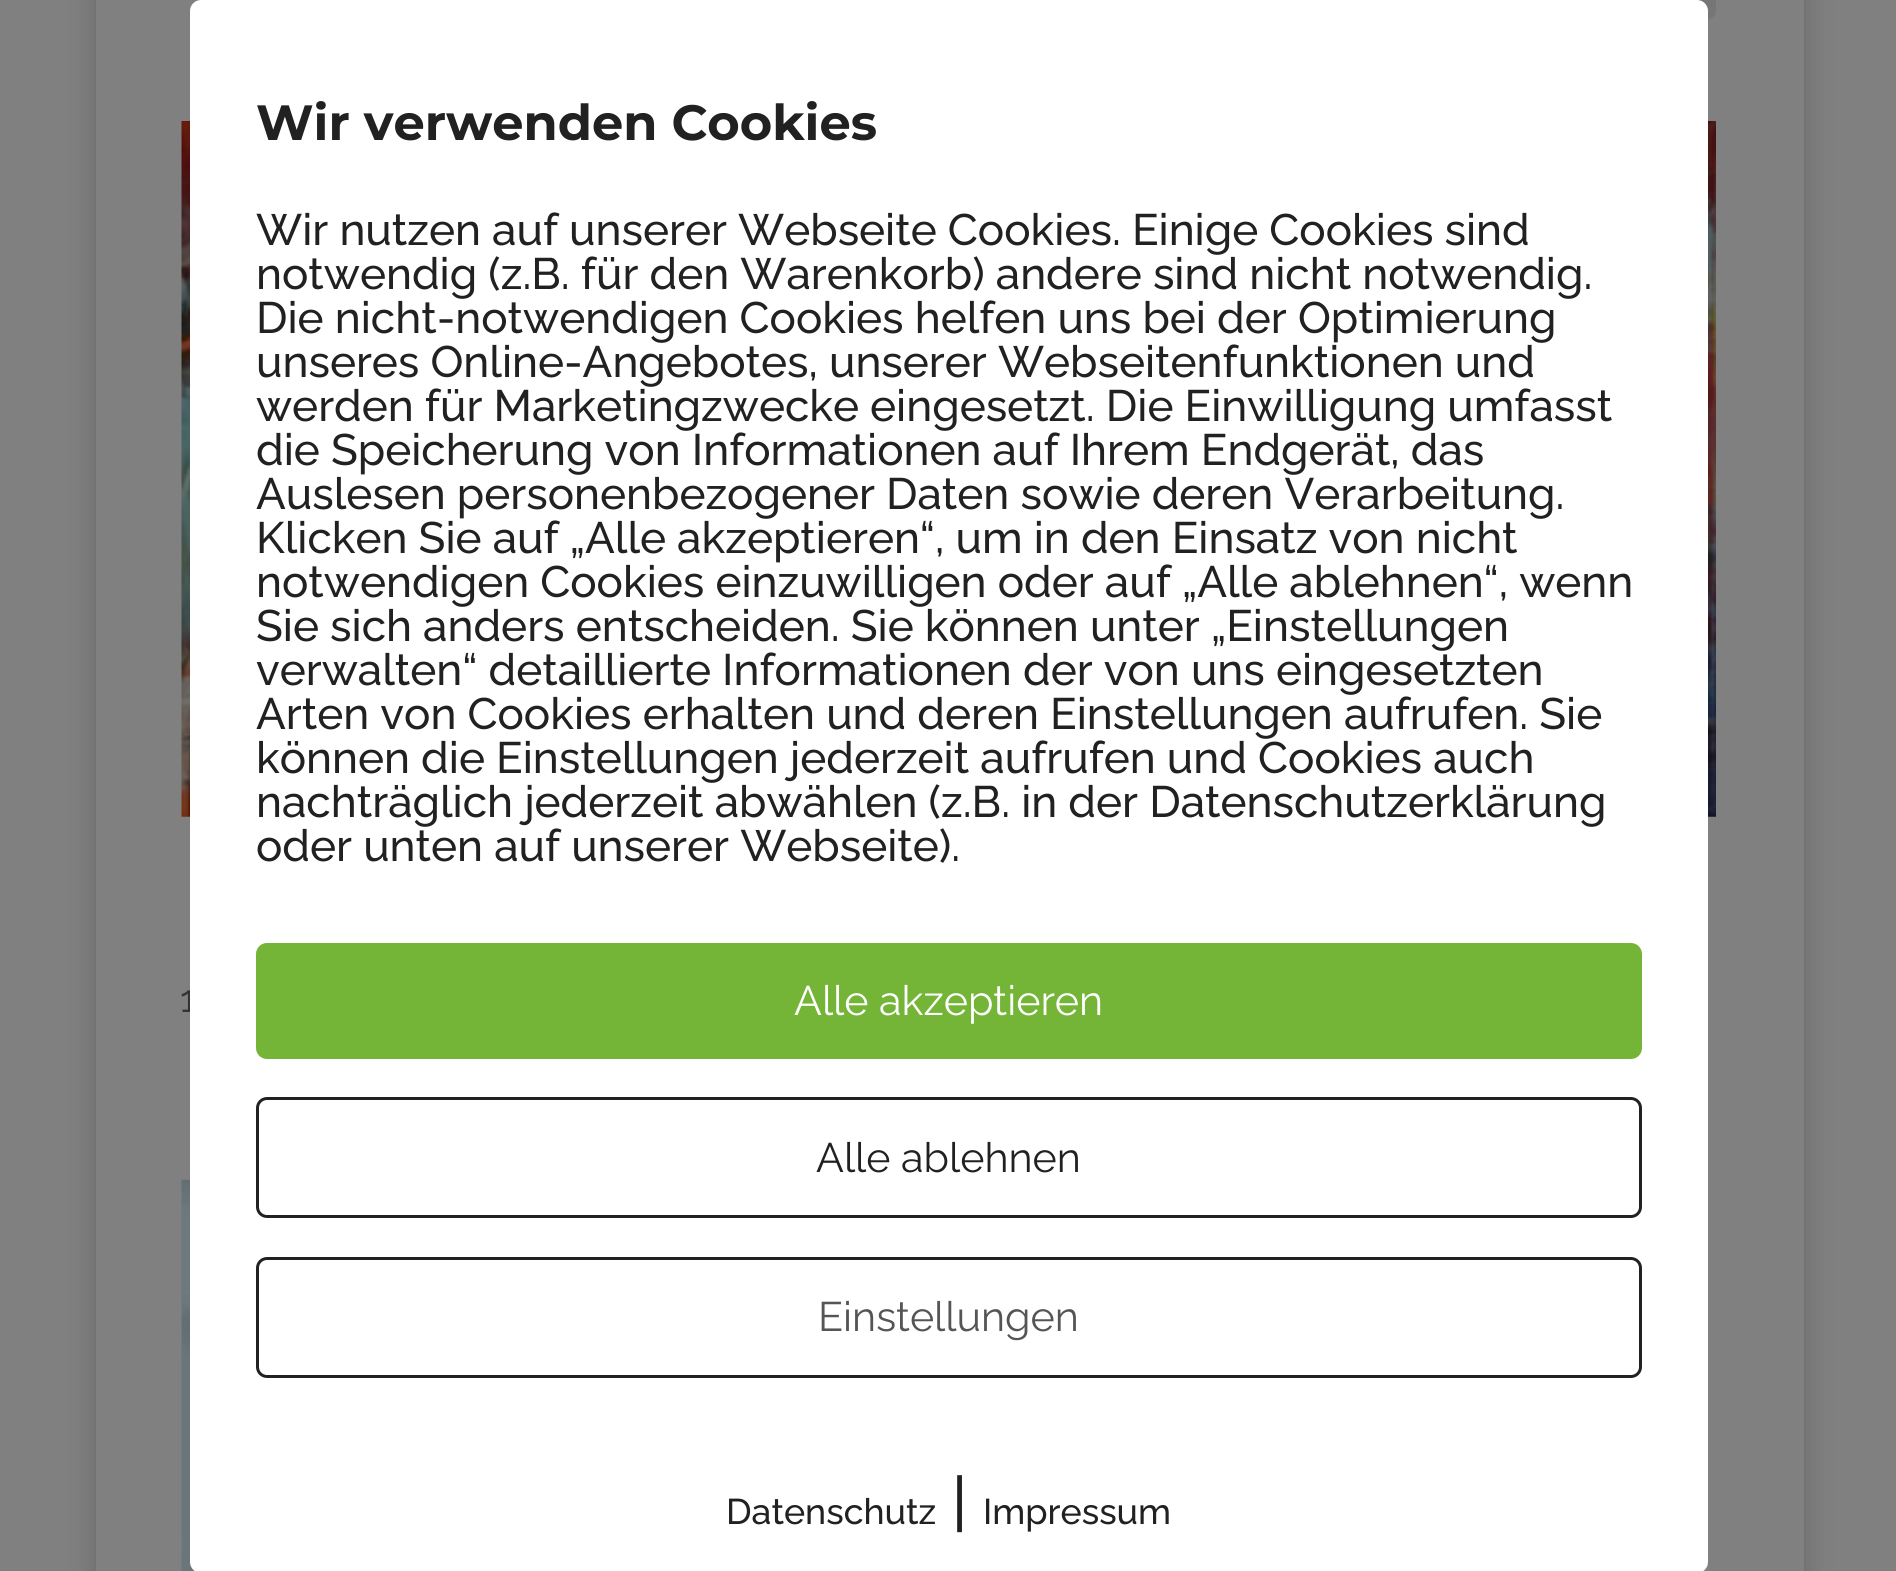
import math
import cairo


def round_path(ctx, x, y, w, h, r):
	ctx.new_sub_path()
	for i, (u, v) in enumerate([(x + w - r, y + h - r), (x + r, y + h - r), (x + r, y + r), (x + w - r, y + r)]):
		ctx.arc(u, v, r, i * math.pi / 2, (i + 1) * math.pi / 2)
	ctx.close_path()

def blur_box(ctx, x, y, w, h, r, blur, alpha):
	ctx.push_group_with_content(cairo.CONTENT_ALPHA)
	ctx.set_operator(cairo.OPERATOR_SOURCE)
	for i in range(15, -16, -2):
		e = blur * i / 6
		if min(w, h) + 2 * e > 0:
			ctx.set_source_rgba(0, 0, 0, alpha * math.erfc((i - 1) / 8.5) / 2)
			round_path(ctx, x - e, y - e, w + 2 * e, h + 2 * e, max(0, min(r + e + blur * .6, min(w, h) / 2 + e)))
			ctx.fill()
	ctx.mask(ctx.pop_group())

def paste(ctx, path, x, y, w, h):
	ctx.save()
	ctx.set_source_surface(cairo.ImageSurface.create_from_png(path), x, y)
	ctx.rectangle(x, y, w, h)
	ctx.fill()
	ctx.restore()

def draw(ctx):
	ctx.set_source_rgb(0.502, 0.502, 0.502)
	ctx.paint()
	ctx.set_source_rgb(0, 0, 0)
	blur_box(ctx, 96, -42, 1708, 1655, 0, 14, 0.2)
	ctx.set_source_rgb(0.502, 0.502, 0.502)
	ctx.rectangle(96, 0, 1708, 1571)
	ctx.fill()
	ctx.set_source_rgb(0.463, 0.463, 0.463)
	round_path(ctx, 1040, -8, 676, 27, 8)
	ctx.fill()
	paste(ctx, 'media/1.png', 1708, 121, 8, 696)
	paste(ctx, 'media/2.png', 181, 121, 9, 696)
	ctx.select_font_face('Raleway')
	ctx.set_font_size(38)
	ctx.set_source_rgb(0.2, 0.2, 0.2)
	ctx.move_to(180, 1012)
	ctx.show_text('1')
	paste(ctx, 'media/3.png', 181, 1179, 14, 392)
	ctx.set_source_rgb(1, 1, 1)
	round_path(ctx, 190, 0, 1518, 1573, 11)
	ctx.fill()
	ctx.select_font_face('Montserrat', cairo.FONT_SLANT_NORMAL, cairo.FONT_WEIGHT_BOLD)
	ctx.set_font_size(49.5)
	ctx.set_source_rgb(0.129, 0.129, 0.129)
	ctx.move_to(256, 140)
	ctx.show_text('Wir verwenden Cookies')
	ctx.select_font_face('Raleway Medium')
	ctx.set_font_size(44)
	for x, y, s in [
		(256, 245, 'Wir nutzen auf unserer Webseite Cookies. Einige Cookies sind'),
		(256, 289, 'notwendig (z.B. für den Warenkorb) andere sind nicht notwendig.'),
		(256, 333, 'Die nicht-notwendigen Cookies helfen uns bei der Optimierung'),
		(256, 377, 'unseres Online-Angebotes, unserer Webseitenfunktionen und'),
		(256, 421, 'werden für Marketingzwecke eingesetzt. Die Einwilligung umfasst'),
		(256, 465, 'die Speicherung von Informationen auf Ihrem Endgerät, das'),
		(256, 509, 'Auslesen personenbezogener Daten sowie deren Verarbeitung.'),
		(256, 553, 'Klicken Sie auf „Alle akzeptieren“, um in den Einsatz von nicht'),
		(256, 597, 'notwendigen Cookies einzuwilligen oder auf „Alle ablehnen“, wenn'),
		(256, 641, 'Sie sich anders entscheiden. Sie können unter „Einstellungen'),
		(256, 685, 'verwalten“ detaillierte Informationen der von uns eingesetzten'),
		(256, 729, 'Arten von Cookies erhalten und deren Einstellungen aufrufen. Sie'),
		(256, 773, 'können die Einstellungen jederzeit aufrufen und Cookies auch'),
		(256, 817, 'nachträglich jederzeit abwählen (z.B. in der Datenschutzerklärung'),
		(256, 861, 'oder unten auf unserer Webseite).'),
	]:
		ctx.move_to(x, y)
		ctx.show_text(s)
	ctx.set_source_rgb(0.455, 0.71, 0.22)
	round_path(ctx, 256, 943, 1386, 116, 11)
	ctx.fill()
	ctx.select_font_face('Raleway')
	ctx.set_font_size(41.25)
	ctx.set_source_rgb(1, 1, 1)
	ctx.move_to(794, 1015)
	ctx.show_text('Alle akzeptieren')
	round_path(ctx, 257.5, 1098.5, 1383, 118, 9.5)
	ctx.set_source_rgb(0.129, 0.129, 0.129)
	ctx.set_line_width(3)
	ctx.stroke()
	ctx.move_to(816, 1172)
	ctx.show_text('Alle ablehnen')
	round_path(ctx, 257.5, 1258.5, 1383, 118, 9.5)
	ctx.stroke()
	ctx.set_source_rgb(0.333, 0.333, 0.333)
	ctx.move_to(818, 1331)
	ctx.show_text('Einstellungen')
	ctx.select_font_face('Raleway Medium')
	ctx.set_font_size(35.75)
	ctx.set_source_rgb(0.129, 0.129, 0.129)
	ctx.move_to(726, 1524)
	ctx.show_text('Datenschutz')
	ctx.set_font_size(63)
	ctx.move_to(952, 1524)
	ctx.show_text('|')
	ctx.set_font_size(35.75)
	ctx.move_to(983, 1524)
	ctx.show_text('Impressum')


surface = cairo.ImageSurface(cairo.FORMAT_RGB24, 1896, 1571)
ctx = cairo.Context(surface)
options = cairo.FontOptions()
options.set_hint_metrics(cairo.HINT_METRICS_OFF)
options.set_hint_style(cairo.HINT_STYLE_NONE)
ctx.set_font_options(options)
ctx.set_miter_limit(4)
draw(ctx)
surface.write_to_png('image.png')
